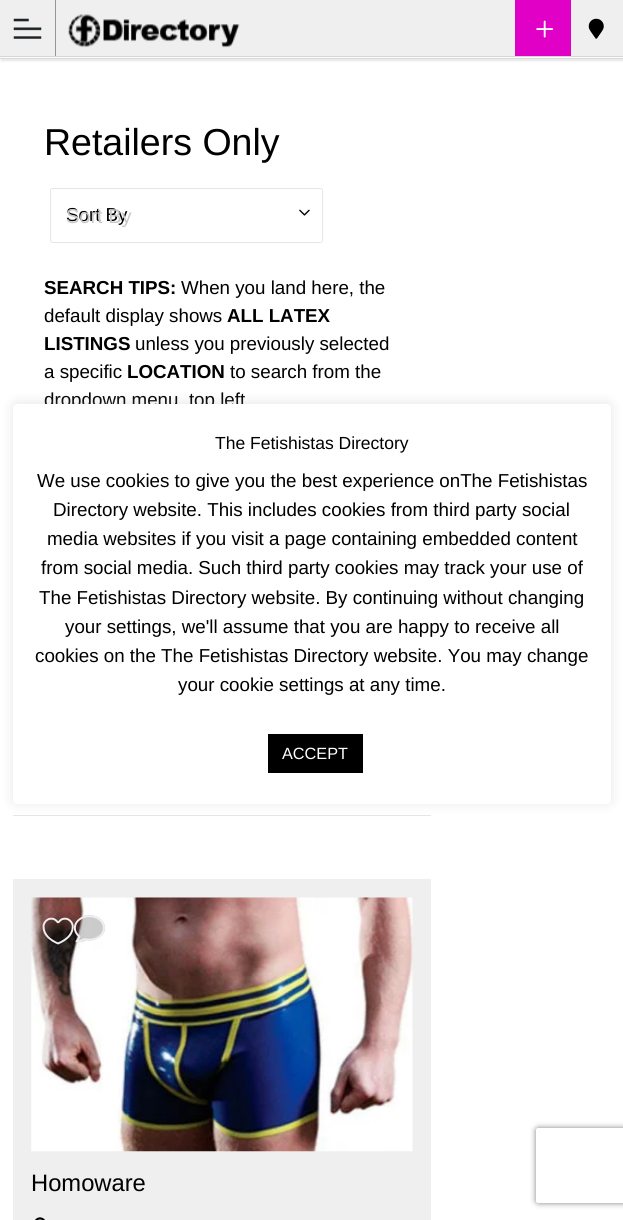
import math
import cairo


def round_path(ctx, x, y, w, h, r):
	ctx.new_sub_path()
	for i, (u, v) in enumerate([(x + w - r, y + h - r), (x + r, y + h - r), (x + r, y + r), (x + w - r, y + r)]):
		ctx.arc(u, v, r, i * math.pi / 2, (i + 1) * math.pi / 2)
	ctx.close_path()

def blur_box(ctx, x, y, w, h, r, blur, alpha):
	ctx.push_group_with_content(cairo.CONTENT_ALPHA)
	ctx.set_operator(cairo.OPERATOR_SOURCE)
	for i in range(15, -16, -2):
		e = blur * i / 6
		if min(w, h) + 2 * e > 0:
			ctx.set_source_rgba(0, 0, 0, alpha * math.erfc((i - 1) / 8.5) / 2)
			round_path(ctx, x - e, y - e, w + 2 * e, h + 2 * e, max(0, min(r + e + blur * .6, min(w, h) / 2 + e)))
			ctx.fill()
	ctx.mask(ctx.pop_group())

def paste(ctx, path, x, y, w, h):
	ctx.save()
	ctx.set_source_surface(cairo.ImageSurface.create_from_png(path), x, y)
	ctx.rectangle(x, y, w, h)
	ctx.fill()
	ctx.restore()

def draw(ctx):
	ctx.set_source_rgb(1, 1, 1)
	ctx.paint()
	ctx.set_source_rgb(0.937, 0.937, 0.937)
	ctx.rectangle(0, 0, 623, 56)
	ctx.fill()
	ctx.set_source_rgb(0, 0, 0)
	blur_box(ctx, 1, 58, 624, 3, 0, 1, 0.1)
	ctx.set_source_rgb(0.588, 0.588, 0.588)
	ctx.rectangle(55, 0, 1, 56)
	ctx.fill()
	paste(ctx, 'media/1.png', 13, 18, 29, 21)
	paste(ctx, 'media/2.png', 68, 14, 172, 34)
	ctx.set_source_rgb(0.878, 0, 0.776)
	ctx.rectangle(515, 0, 56, 56)
	ctx.fill()
	paste(ctx, 'media/3.png', 536, 20, 18, 18)
	ctx.set_source_rgb(0.98, 0.98, 0.98)
	ctx.rectangle(0, 57, 623, 1)
	ctx.fill()
	ctx.set_source_rgb(0.855, 0.855, 0.855)
	ctx.rectangle(0, 58, 623, 1)
	ctx.fill()
	ctx.set_source_rgb(0.843, 0.843, 0.843)
	ctx.rectangle(0, 56, 623, 1)
	ctx.fill()
	paste(ctx, 'media/4.png', 588, 18, 16, 21)
	ctx.set_source_rgb(0.902, 0.902, 0.902)
	ctx.rectangle(13, 815, 418, 1)
	ctx.fill()
	ctx.select_font_face('Arimo')
	ctx.set_font_size(37.5)
	ctx.set_source_rgb(0, 0, 0)
	ctx.move_to(44, 155)
	ctx.show_text('Retailers Only')
	round_path(ctx, 50.5, 188.5, 272, 54, 2)
	ctx.set_source_rgb(0.902, 0.902, 0.902)
	ctx.set_line_width(1)
	ctx.stroke()
	ctx.set_font_size(18.75)
	ctx.set_source_rgb(0, 0, 0)
	ctx.move_to(66, 221)
	ctx.show_text('Sort By')
	paste(ctx, 'media/5.png', 299, 209, 11, 7)
	ctx.set_font_size(20)
	ctx.set_source_rgb(0.784, 0.784, 0.784)
	ctx.move_to(66, 223)
	ctx.show_text('Sort By')
	ctx.select_font_face('Arimo', cairo.FONT_SLANT_NORMAL, cairo.FONT_WEIGHT_BOLD)
	ctx.set_font_size(18.75)
	ctx.set_source_rgb(0, 0, 0)
	ctx.move_to(44, 294)
	ctx.show_text('SEARCH TIPS:')
	ctx.select_font_face('Arimo')
	ctx.move_to(181, 294)
	ctx.show_text('When you land here, the')
	ctx.move_to(44, 322)
	ctx.show_text('default display shows')
	ctx.select_font_face('Arimo', cairo.FONT_SLANT_NORMAL, cairo.FONT_WEIGHT_BOLD)
	ctx.move_to(227, 322)
	ctx.show_text('ALL LATEX')
	ctx.move_to(44, 350)
	ctx.show_text('LISTINGS')
	ctx.select_font_face('Arimo')
	ctx.move_to(135, 350)
	ctx.show_text('unless you previously selected')
	ctx.move_to(44, 378)
	ctx.show_text('a specific')
	ctx.select_font_face('Arimo', cairo.FONT_SLANT_NORMAL, cairo.FONT_WEIGHT_BOLD)
	ctx.move_to(127, 378)
	ctx.show_text('LOCATION')
	ctx.select_font_face('Arimo')
	ctx.move_to(230, 378)
	ctx.show_text('to search from the')
	ctx.move_to(44, 406)
	ctx.show_text('dropdown menu, top left')
	ctx.set_source_rgb(0.937, 0.937, 0.937)
	ctx.rectangle(13, 879, 418, 341)
	ctx.fill()
	paste(ctx, 'media/6.png', 31, 897, 382, 255)
	paste(ctx, 'media/7.png', 42, 917, 32, 27)
	paste(ctx, 'media/8.png', 42, 917, 32, 28)
	paste(ctx, 'media/10.png', 74, 915, 31, 28)
	paste(ctx, 'media/9.png', 73, 915, 32, 28)
	ctx.set_font_size(23.75)
	ctx.set_source_rgb(0, 0, 0)
	ctx.move_to(31, 1191)
	ctx.show_text('Homoware')
	paste(ctx, 'media/11.png', 35, 1217, 10, 3)
	ctx.set_source_rgb(0.675, 0.671, 0.671)
	blur_box(ctx, 13, 403, 598, 400, 4, 6, 0.3)
	ctx.set_source_rgb(1, 1, 1)
	round_path(ctx, 13, 404, 598, 400, 4)
	ctx.fill()
	ctx.set_font_size(17.5)
	ctx.set_source_rgb(0, 0, 0)
	ctx.move_to(215, 449)
	ctx.show_text('The Fetishistas Directory')
	ctx.set_font_size(18.75)
	for x, y, s in [
		(37, 487, 'We use cookies to give you the best experience onThe Fetishistas'),
		(53, 516, 'Directory website. This includes cookies from third party social'),
		(47, 545, 'media websites if you visit a page containing embedded content'),
		(41, 574, 'from social media. Such third party cookies may track your use of'),
		(39, 604, 'The Fetishistas Directory website. By continuing without changing'),
		(65, 633, 'your settings, we\'ll assume that you are happy to receive all'),
		(35, 662, 'cookies on the The Fetishistas Directory website. You may change'),
		(178, 691, 'your cookie settings at any time.'),
	]:
		ctx.move_to(x, y)
		ctx.show_text(s)
	ctx.rectangle(268, 734, 95, 39)
	ctx.fill()
	ctx.set_font_size(16.25)
	ctx.set_source_rgb(1, 1, 1)
	ctx.move_to(282, 759)
	ctx.show_text('ACCEPT')
	ctx.save()
	ctx.set_fill_rule(cairo.FILL_RULE_EVEN_ODD)
	ctx.new_path()
	ctx.move_to(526, 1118)
	ctx.line_to(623, 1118)
	ctx.line_to(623, 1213)
	ctx.line_to(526, 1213)
	ctx.close_path()
	ctx.move_to(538.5, 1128)
	ctx.line_to(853.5, 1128)
	ctx.curve_to(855, 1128, 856, 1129, 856, 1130.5)
	ctx.line_to(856, 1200.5)
	ctx.curve_to(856, 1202, 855, 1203, 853.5, 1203)
	ctx.line_to(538.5, 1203)
	ctx.curve_to(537, 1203, 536, 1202, 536, 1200.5)
	ctx.line_to(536, 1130.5)
	ctx.curve_to(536, 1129, 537, 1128, 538.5, 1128)
	ctx.close_path()
	ctx.clip()
	ctx.set_source_rgb(0.502, 0.502, 0.502)
	blur_box(ctx, 536, 1128, 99, 75, 2.5, 3, 1)
	ctx.restore()


surface = cairo.ImageSurface(cairo.FORMAT_RGB24, 623, 1220)
ctx = cairo.Context(surface)
options = cairo.FontOptions()
options.set_hint_metrics(cairo.HINT_METRICS_OFF)
options.set_hint_style(cairo.HINT_STYLE_NONE)
ctx.set_font_options(options)
ctx.set_miter_limit(4)
draw(ctx)
surface.write_to_png('image.png')
